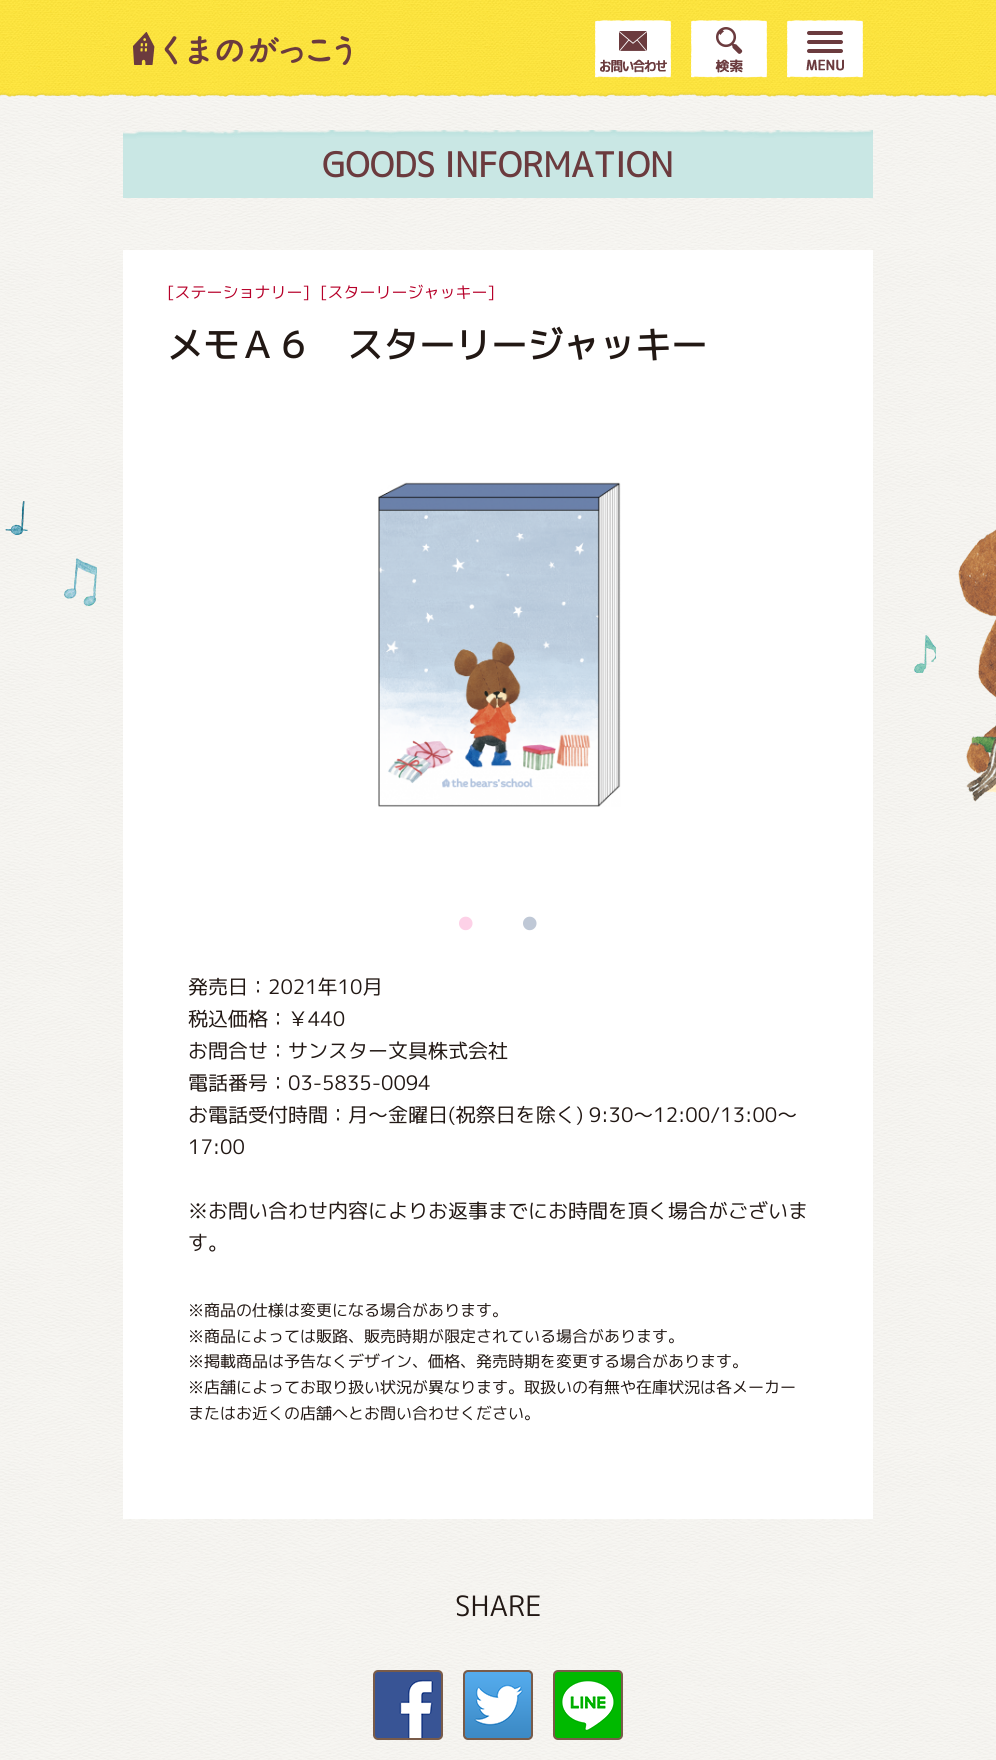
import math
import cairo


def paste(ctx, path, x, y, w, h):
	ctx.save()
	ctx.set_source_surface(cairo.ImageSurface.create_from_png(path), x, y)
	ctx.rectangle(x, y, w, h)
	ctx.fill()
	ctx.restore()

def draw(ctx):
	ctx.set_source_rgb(1, 1, 1)
	ctx.paint()
	paste(ctx, 'media/1.png', 0, 94, 996, 1666)
	paste(ctx, 'media/2.png', 0, 0, 996, 97)
	paste(ctx, 'media/3.png', 133, 32, 218, 33)
	paste(ctx, 'media/4.png', 595, 20, 76, 58)
	paste(ctx, 'media/5.png', 691, 20, 76, 58)
	paste(ctx, 'media/6.png', 787, 20, 76, 58)
	paste(ctx, 'media/7.png', 123, 130, 750, 68)
	ctx.select_font_face('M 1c', cairo.FONT_SLANT_NORMAL, cairo.FONT_WEIGHT_BOLD)
	ctx.set_font_size(34)
	ctx.set_source_rgb(0.42, 0.231, 0.243)
	ctx.move_to(322, 177)
	ctx.show_text('GOODS INFORMATION')
	ctx.set_source_rgb(1, 1, 1)
	ctx.rectangle(123, 250, 750, 1269)
	ctx.fill()
	ctx.select_font_face('M 1c')
	ctx.set_font_size(16)
	ctx.set_source_rgb(0.714, 0, 0.161)
	ctx.move_to(167, 298)
	ctx.show_text('[ステーショナリー]')
	ctx.move_to(320, 298)
	ctx.show_text('[スターリージャッキー]')
	ctx.select_font_face('M 1c', cairo.FONT_SLANT_NORMAL, cairo.FONT_WEIGHT_BOLD)
	ctx.set_font_size(36)
	ctx.set_source_rgb(0.133, 0.094, 0.082)
	ctx.move_to(167, 358)
	ctx.show_text('メモＡ６　スターリージャッキー')
	paste(ctx, 'media/8.png', 378, 482, 243, 325)
	ctx.select_font_face('Liberation Sans')
	ctx.set_font_size(50)
	ctx.set_source_rgb(0.992, 0.82, 0.906)
	ctx.move_to(457, 940)
	ctx.show_text('•')
	ctx.set_source_rgb(0.749, 0.784, 0.839)
	ctx.move_to(521, 940)
	ctx.show_text('•')
	ctx.select_font_face('M 1c')
	ctx.set_font_size(20)
	ctx.set_source_rgb(0.133, 0.094, 0.082)
	for x, y, s in [
		(188, 994, '発売日：2021年10月'),
		(188, 1026, '税込価格：￥440'),
		(188, 1058, 'お問合せ：サンスター文具株式会社'),
		(188, 1090, '電話番号：03-5835-0094'),
		(188, 1122, 'お電話受付時間：月〜金曜日(祝祭日を除く) 9:30～12:00/13:00～'),
		(188, 1154, '17:00'),
		(188, 1218, '※お問い合わせ内容によりお返事までにお時間を頂く場合がございま'),
		(188, 1250, 'す。'),
	]:
		ctx.move_to(x, y)
		ctx.show_text(s)
	ctx.set_font_size(16)
	for x, y, s in [
		(188, 1316, '※商品の仕様は変更になる場合があります。'),
		(188, 1342, '※商品によっては販路、販売時期が限定されている場合があります。'),
		(188, 1367, '※掲載商品は予告なくデザイン、価格、発売時期を変更する場合があります。'),
		(188, 1393, '※店舗によってお取り扱い状況が異なります。取扱いの有無や在庫状況は各メーカー'),
		(188, 1419, 'またはお近くの店舗へとお問い合わせください。'),
	]:
		ctx.move_to(x, y)
		ctx.show_text(s)
	ctx.set_font_size(28)
	ctx.move_to(455, 1616)
	ctx.show_text('SHARE')
	paste(ctx, 'media/9.png', 373, 1670, 70, 70)
	paste(ctx, 'media/10.png', 463, 1670, 70, 70)
	paste(ctx, 'media/11.png', 553, 1670, 70, 70)


surface = cairo.ImageSurface(cairo.FORMAT_RGB24, 996, 1760)
ctx = cairo.Context(surface)
options = cairo.FontOptions()
options.set_hint_metrics(cairo.HINT_METRICS_OFF)
options.set_hint_style(cairo.HINT_STYLE_NONE)
ctx.set_font_options(options)
ctx.set_miter_limit(4)
draw(ctx)
surface.write_to_png('image.png')
